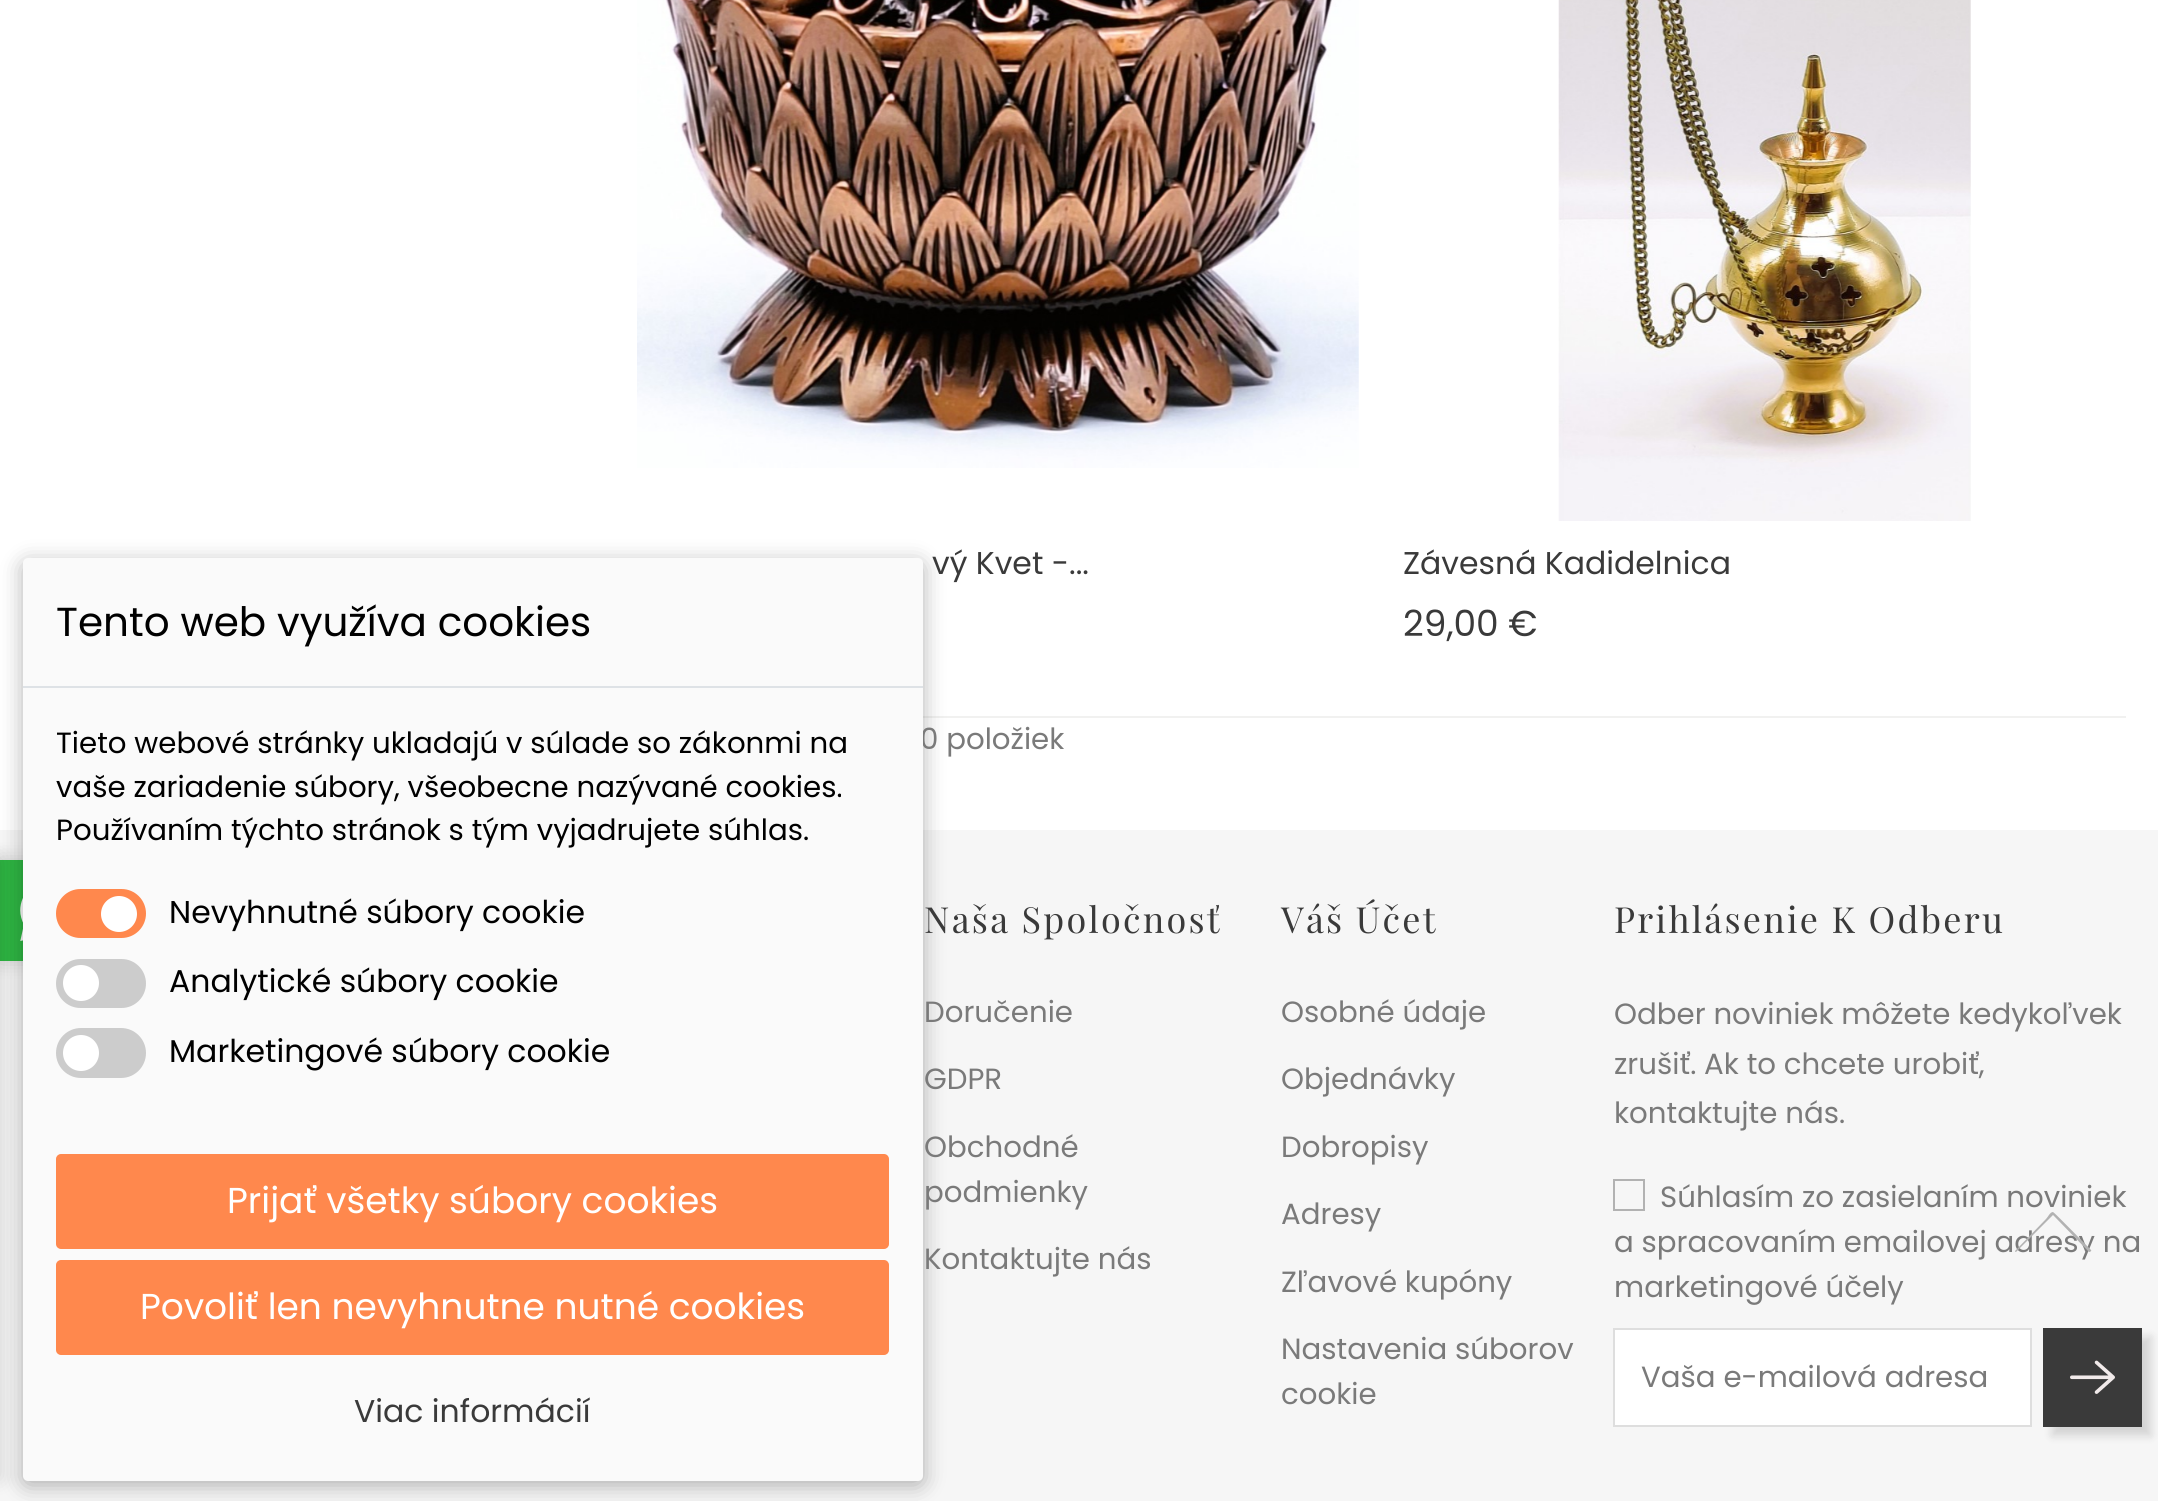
import math
import cairo


def write_spaced(ctx, x, y, s, letter, word):
	ctx.move_to(x, y)
	for ch in s:
		ctx.show_text(ch)
		ctx.rel_move_to(letter + word * (ch == ' '), 0)

def round_path(ctx, x, y, w, h, r):
	ctx.new_sub_path()
	for i, (u, v) in enumerate([(x + w - r, y + h - r), (x + r, y + h - r), (x + r, y + r), (x + w - r, y + r)]):
		ctx.arc(u, v, r, i * math.pi / 2, (i + 1) * math.pi / 2)
	ctx.close_path()

def blur_box(ctx, x, y, w, h, r, blur, alpha):
	ctx.push_group_with_content(cairo.CONTENT_ALPHA)
	ctx.set_operator(cairo.OPERATOR_SOURCE)
	for i in range(15, -16, -2):
		e = blur * i / 6
		if min(w, h) + 2 * e > 0:
			ctx.set_source_rgba(0, 0, 0, alpha * math.erfc((i - 1) / 8.5) / 2)
			round_path(ctx, x - e, y - e, w + 2 * e, h + 2 * e, max(0, min(r + e + blur * .6, min(w, h) / 2 + e)))
			ctx.fill()
	ctx.mask(ctx.pop_group())

def paste(ctx, path, x, y, w, h):
	ctx.save()
	ctx.set_source_surface(cairo.ImageSurface.create_from_png(path), x, y)
	ctx.rectangle(x, y, w, h)
	ctx.fill()
	ctx.restore()

def draw(ctx):
	ctx.set_source_rgb(1, 1, 1)
	ctx.paint()
	ctx.set_source_rgb(0.945, 0.945, 0.941)
	ctx.rectangle(923, 716, 1203, 2)
	ctx.fill()
	ctx.set_source_rgb(0.961, 0.961, 0.961)
	ctx.rectangle(0, 830, 2158, 671)
	ctx.fill()
	ctx.set_source_rgb(0, 0, 0)
	blur_box(ctx, 0, 860, 101, 101, 0, 10, 0.15)
	ctx.set_source_rgb(0.18, 0.718, 0.263)
	ctx.rectangle(0, 860, 23, 101)
	ctx.fill()
	paste(ctx, 'media/3.png', 20, 898, 3, 43)
	ctx.set_source_rgb(0, 0, 0)
	blur_box(ctx, 23, 563, 900, 922, 5, 11, 0.3)
	ctx.select_font_face('Poppins')
	ctx.set_font_size(29.25)
	ctx.set_source_rgb(0.478, 0.478, 0.478)
	ctx.move_to(920, 749)
	ctx.show_text('0 položiek')
	ctx.set_source_rgb(0, 0, 0)
	blur_box(ctx, -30, 860, 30, 618, 0, 10, 0.15)
	ctx.set_source_rgb(0.98, 0.98, 0.98)
	round_path(ctx, 23, 558, 900, 923, 5)
	ctx.fill()
	ctx.set_source_rgb(0.871, 0.886, 0.902)
	ctx.rectangle(23, 686, 900, 2)
	ctx.fill()
	ctx.set_font_size(40.5)
	ctx.set_source_rgb(0, 0, 0)
	ctx.move_to(56, 636)
	ctx.show_text('Tento web využíva cookies')
	ctx.set_font_size(29.25)
	for x, y, s in [
		(56, 753, 'Tieto webové stránky ukladajú v súlade so zákonmi na'),
		(56, 797, 'vaše zariadenie súbory, všeobecne nazývané cookies.'),
		(56, 840, 'Používaním týchto stránok s tým vyjadrujete súhlas.'),
	]:
		ctx.move_to(x, y)
		ctx.show_text(s)
	ctx.set_source_rgb(1, 0.533, 0.302)
	round_path(ctx, 56, 889, 90, 49, 24.5)
	ctx.fill()
	ctx.set_source_rgb(1, 1, 1)
	ctx.arc(119, 914, 18, 0, 2 * math.pi)
	ctx.fill()
	ctx.set_font_size(31.5)
	ctx.set_source_rgb(0, 0, 0)
	ctx.move_to(169, 923)
	ctx.show_text('Nevyhnutné súbory cookie')
	ctx.set_source_rgb(0.8, 0.8, 0.8)
	round_path(ctx, 56, 959, 90, 49, 24.5)
	ctx.fill()
	ctx.set_source_rgb(1, 1, 1)
	ctx.arc(81, 983, 18, 0, 2 * math.pi)
	ctx.fill()
	ctx.set_source_rgb(0, 0, 0)
	ctx.move_to(169, 992)
	ctx.show_text('Analytické súbory cookie')
	ctx.set_source_rgb(0.8, 0.8, 0.8)
	round_path(ctx, 56, 1028, 90, 50, 25)
	ctx.fill()
	ctx.set_source_rgb(1, 1, 1)
	ctx.arc(81, 1053, 18, 0, 2 * math.pi)
	ctx.fill()
	ctx.set_source_rgb(0, 0, 0)
	ctx.move_to(169, 1062)
	ctx.show_text('Marketingové súbory cookie')
	ctx.set_source_rgb(1, 0.533, 0.302)
	round_path(ctx, 57, 1155, 831, 93, 4)
	ctx.fill_preserve()
	ctx.stroke()
	ctx.set_font_size(36)
	ctx.set_source_rgb(1, 1, 1)
	ctx.move_to(227, 1213)
	ctx.show_text('Prijať všetky súbory cookies')
	ctx.set_source_rgb(1, 0.533, 0.302)
	round_path(ctx, 57, 1261, 831, 93, 4)
	ctx.fill_preserve()
	ctx.stroke()
	ctx.set_source_rgb(1, 1, 1)
	ctx.move_to(140, 1319)
	ctx.show_text('Povoliť len nevyhnutne nutné cookies')
	ctx.set_font_size(31.5)
	ctx.set_source_rgb(0.227, 0.227, 0.227)
	ctx.move_to(354, 1422)
	ctx.show_text('Viac informácií')
	paste(ctx, 'media/1.png', 637, 0, 722, 468)
	ctx.move_to(932, 574)
	ctx.show_text('vý Kvet -...')
	paste(ctx, 'media/2.png', 1558, 0, 413, 521)
	ctx.move_to(1403, 574)
	ctx.show_text('Závesná Kadidelnica')
	ctx.set_font_size(36)
	ctx.move_to(1403, 636)
	ctx.show_text('29,00 €')
	ctx.select_font_face('Playfair Display')
	write_spaced(ctx, 924, 933, 'Naša Spoločnosť', 2.25, 0)
	ctx.select_font_face('Poppins')
	ctx.set_font_size(29.25)
	ctx.set_source_rgb(0.478, 0.478, 0.478)
	for x, y, s in [
		(924, 1022, 'Doručenie'),
		(924, 1089, 'GDPR'),
		(924, 1157, 'Obchodné'),
		(924, 1202, 'podmienky'),
		(924, 1269, 'Kontaktujte nás'),
	]:
		ctx.move_to(x, y)
		ctx.show_text(s)
	ctx.select_font_face('Playfair Display')
	ctx.set_font_size(36)
	ctx.set_source_rgb(0.227, 0.227, 0.227)
	write_spaced(ctx, 1281, 933, 'Váš Účet', 2.25, 0)
	ctx.select_font_face('Poppins')
	ctx.set_font_size(29.25)
	ctx.set_source_rgb(0.478, 0.478, 0.478)
	for x, y, s in [
		(1281, 1022, 'Osobné údaje'),
		(1281, 1089, 'Objednávky'),
		(1281, 1157, 'Dobropisy'),
		(1281, 1224, 'Adresy'),
		(1281, 1292, 'Zľavové kupóny'),
		(1281, 1359, 'Nastavenia súborov'),
		(1281, 1404, 'cookie'),
	]:
		ctx.move_to(x, y)
		ctx.show_text(s)
	ctx.select_font_face('Playfair Display')
	ctx.set_font_size(36)
	ctx.set_source_rgb(0.227, 0.227, 0.227)
	write_spaced(ctx, 1614, 933, 'Prihlásenie K Odberu', 2.25, 0)
	ctx.select_font_face('Poppins')
	ctx.set_font_size(29.25)
	ctx.set_source_rgb(0.478, 0.478, 0.478)
	for x, y, s in [
		(1614, 1024, 'Odber noviniek môžete kedykoľvek'),
		(1614, 1074, 'zrušiť. Ak to chcete urobiť,'),
		(1614, 1123, 'kontaktujte nás.'),
	]:
		ctx.move_to(x, y)
		ctx.show_text(s)
	ctx.rectangle(1614, 1180, 30, 30)
	ctx.set_source_rgb(0.698, 0.698, 0.698)
	ctx.stroke()
	ctx.set_source_rgb(0.478, 0.478, 0.478)
	for x, y, s in [
		(1660, 1207, 'Súhlasím zo zasielaním noviniek'),
		(1614, 1252, 'a spracovaním emailovej adresy na'),
		(1614, 1297, 'marketingové účely'),
	]:
		ctx.move_to(x, y)
		ctx.show_text(s)
	ctx.set_source_rgb(1, 1, 1)
	ctx.rectangle(1614, 1329, 417, 97)
	ctx.fill_preserve()
	ctx.set_source_rgb(0.871, 0.871, 0.871)
	ctx.stroke()
	ctx.set_source_rgb(0.478, 0.478, 0.478)
	ctx.move_to(1641, 1387)
	ctx.show_text('Vaša e-mailová adresa')
	ctx.set_source_rgb(0, 0, 0)
	blur_box(ctx, 2052, 1337, 99, 99, 0, 4.5, 0.14)
	ctx.set_source_rgb(0.227, 0.227, 0.227)
	ctx.rectangle(2043, 1328, 99, 99)
	ctx.fill()
	paste(ctx, 'media/4.png', 2070, 1360, 45, 34)
	ctx.set_source_rgb(0.698, 0.698, 0.698)
	ctx.new_path()
	ctx.move_to(2053, 1212)
	ctx.curve_to(2050, 1212, 2048, 1217, 2046, 1219)
	ctx.line_to(2015, 1251)
	ctx.curve_to(2015, 1251, 2015, 1252, 2016, 1252)
	ctx.line_to(2053, 1215)
	ctx.line_to(2089, 1252)
	ctx.curve_to(2090, 1252, 2092, 1251, 2091, 1250)
	ctx.curve_to(2087, 1246, 2054, 1212, 2053, 1212)
	ctx.close_path()
	ctx.fill()


surface = cairo.ImageSurface(cairo.FORMAT_RGB24, 2158, 1501)
ctx = cairo.Context(surface)
options = cairo.FontOptions()
options.set_hint_metrics(cairo.HINT_METRICS_OFF)
options.set_hint_style(cairo.HINT_STYLE_NONE)
ctx.set_font_options(options)
ctx.set_miter_limit(4)
draw(ctx)
surface.write_to_png('image.png')
